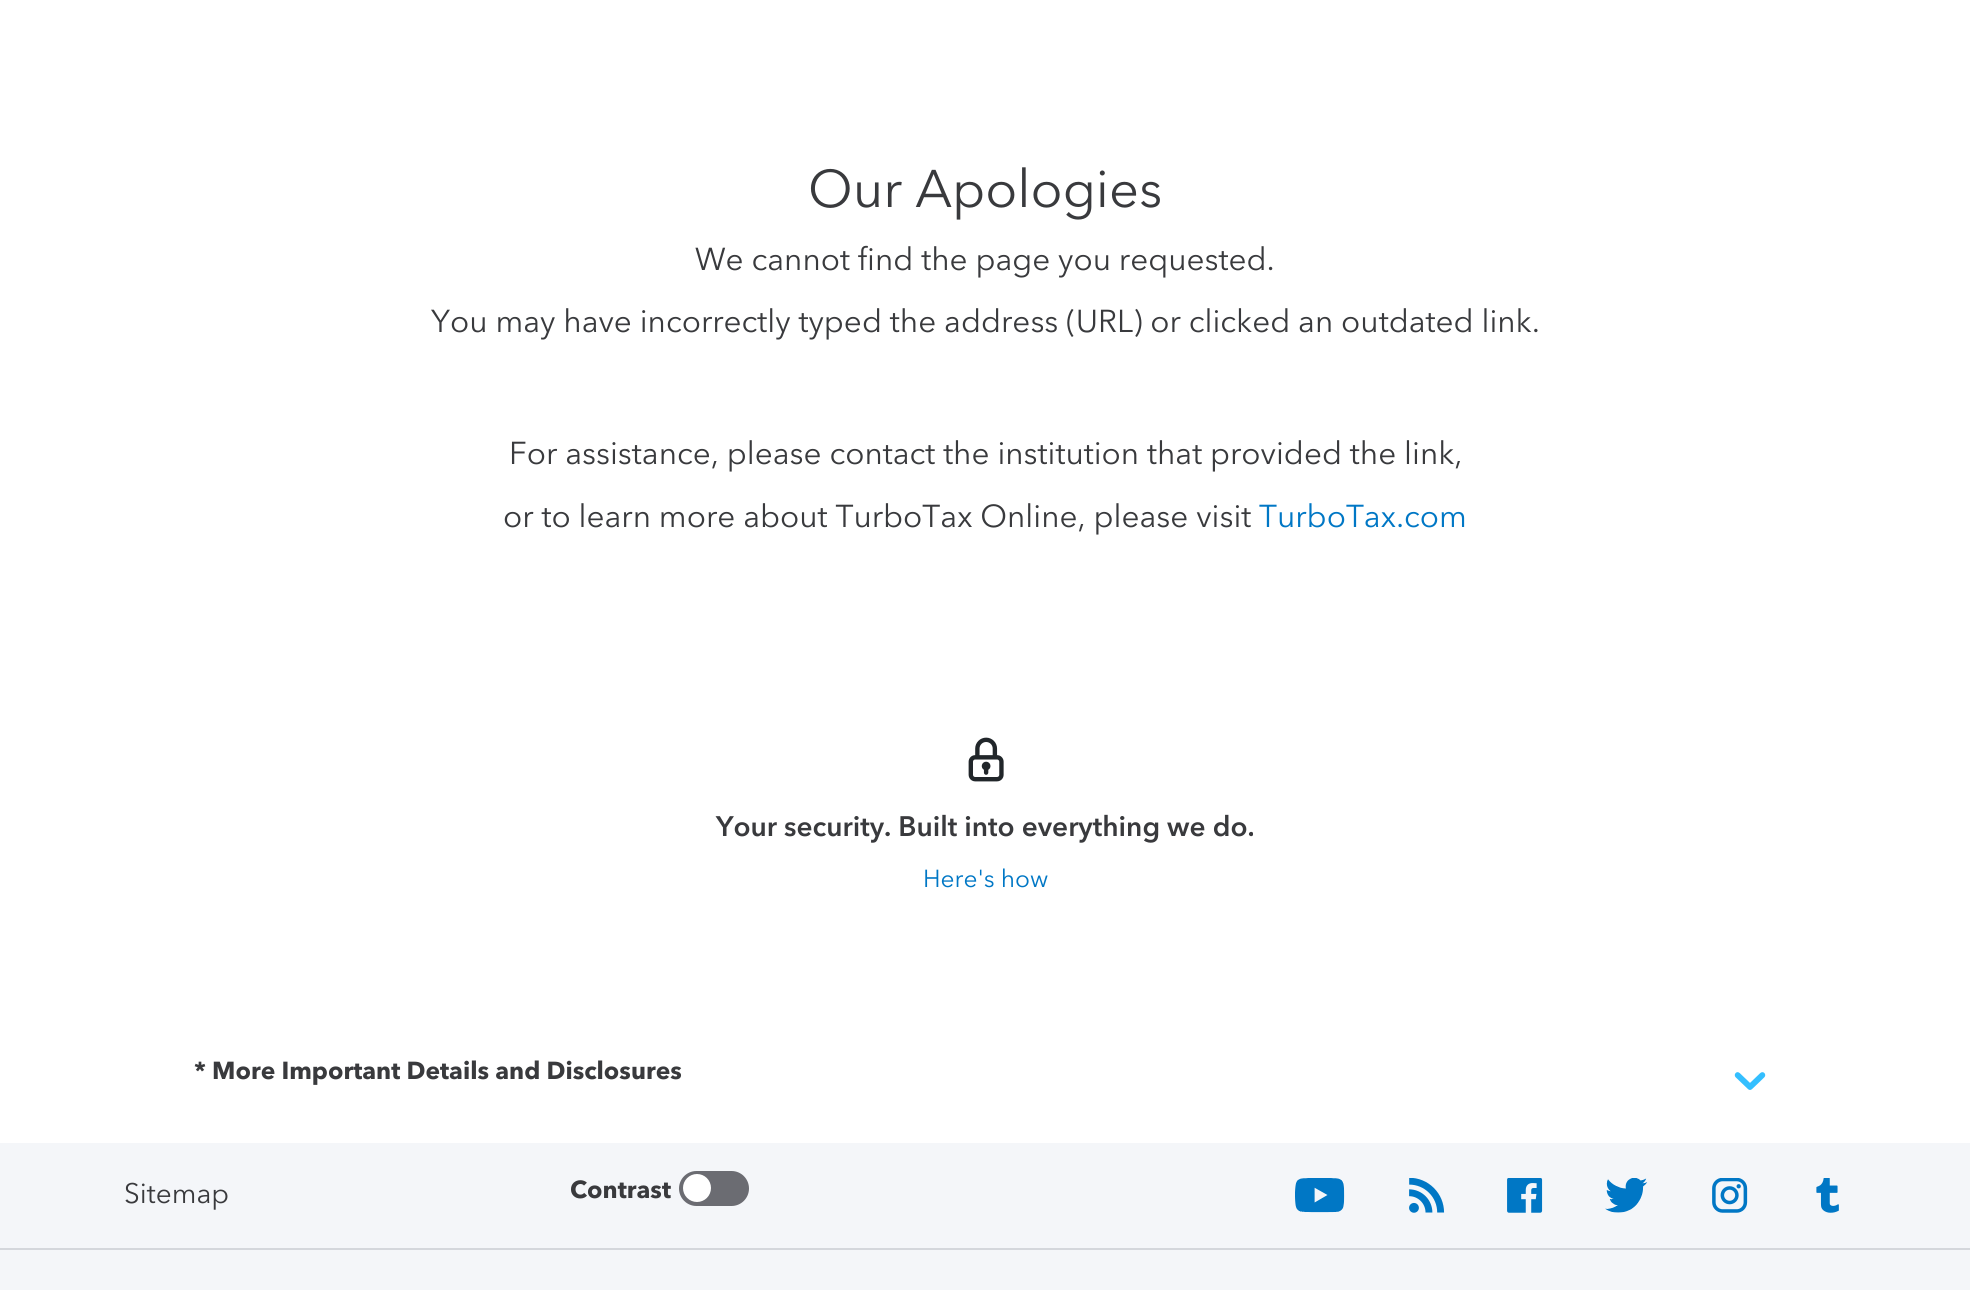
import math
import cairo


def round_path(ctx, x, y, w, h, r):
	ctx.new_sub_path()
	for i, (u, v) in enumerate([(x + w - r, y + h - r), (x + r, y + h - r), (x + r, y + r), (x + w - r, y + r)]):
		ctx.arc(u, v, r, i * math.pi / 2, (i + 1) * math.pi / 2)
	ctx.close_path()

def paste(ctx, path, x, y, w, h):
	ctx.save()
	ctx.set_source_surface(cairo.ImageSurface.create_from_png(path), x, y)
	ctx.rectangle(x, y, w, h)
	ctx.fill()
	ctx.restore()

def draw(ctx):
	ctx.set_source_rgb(1, 1, 1)
	ctx.paint()
	ctx.select_font_face('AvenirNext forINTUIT')
	ctx.set_font_size(52.5)
	ctx.set_source_rgb(0.224, 0.227, 0.239)
	ctx.move_to(808, 207)
	ctx.show_text('Our Apologies')
	ctx.set_font_size(31.5)
	for x, y, s in [
		(695, 270, 'We cannot find the page you requested.'),
		(431, 332, 'You may have incorrectly typed the address (URL) or clicked an outdated link.'),
		(509, 464, 'For assistance, please contact the institution that provided the link,'),
		(503, 527, 'or to learn more about TurboTax Online, please visit'),
	]:
		ctx.move_to(x, y)
		ctx.show_text(s)
	ctx.set_source_rgb(0, 0.467, 0.773)
	ctx.move_to(1259, 527)
	ctx.show_text('TurboTax.com')
	paste(ctx, 'media/1.png', 968, 737, 36, 45)
	ctx.select_font_face('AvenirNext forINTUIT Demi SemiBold')
	ctx.set_font_size(28)
	ctx.set_source_rgb(0.224, 0.227, 0.239)
	ctx.move_to(716, 836)
	ctx.show_text('Your security. Built into everything we do.')
	ctx.select_font_face('AvenirNext forINTUIT')
	ctx.set_font_size(24.5)
	ctx.set_source_rgb(0, 0.467, 0.773)
	ctx.move_to(923, 887)
	ctx.show_text('Here\'s how')
	ctx.select_font_face('AvenirNext forINTUIT', cairo.FONT_SLANT_NORMAL, cairo.FONT_WEIGHT_BOLD)
	ctx.set_source_rgb(0.224, 0.227, 0.239)
	ctx.move_to(194, 1079)
	ctx.show_text('* More Important Details and Disclosures')
	paste(ctx, 'media/2.png', 1734, 1072, 32, 18)
	ctx.set_source_rgb(0.957, 0.961, 0.973)
	ctx.rectangle(0, 1143, 1970, 147)
	ctx.fill()
	ctx.select_font_face('AvenirNext forINTUIT')
	ctx.set_font_size(28)
	ctx.set_source_rgb(0.224, 0.227, 0.239)
	ctx.move_to(124, 1203)
	ctx.show_text('Sitemap')
	ctx.select_font_face('AvenirNext forINTUIT', cairo.FONT_SLANT_NORMAL, cairo.FONT_WEIGHT_BOLD)
	ctx.set_font_size(24.5)
	ctx.move_to(570, 1198)
	ctx.show_text('Contrast')
	ctx.set_source_rgb(0.42, 0.424, 0.447)
	round_path(ctx, 679, 1171, 70, 35, 17.5)
	ctx.fill()
	ctx.set_source_rgb(1, 1, 1)
	ctx.arc(697, 1188, 14, 0, 2 * math.pi)
	ctx.fill()
	paste(ctx, 'media/3.png', 1295, 1178, 50, 35)
	paste(ctx, 'media/4.png', 1409, 1178, 36, 35)
	paste(ctx, 'media/5.png', 1507, 1178, 36, 35)
	paste(ctx, 'media/6.png', 1605, 1178, 43, 35)
	paste(ctx, 'media/7.png', 1712, 1178, 36, 35)
	paste(ctx, 'media/8.png', 1816, 1178, 23, 35)
	ctx.set_source_rgb(0.831, 0.843, 0.863)
	ctx.rectangle(0, 1248, 1970, 2)
	ctx.fill()


surface = cairo.ImageSurface(cairo.FORMAT_RGB24, 1970, 1290)
ctx = cairo.Context(surface)
options = cairo.FontOptions()
options.set_hint_metrics(cairo.HINT_METRICS_OFF)
options.set_hint_style(cairo.HINT_STYLE_NONE)
ctx.set_font_options(options)
ctx.set_miter_limit(4)
draw(ctx)
surface.write_to_png('image.png')
